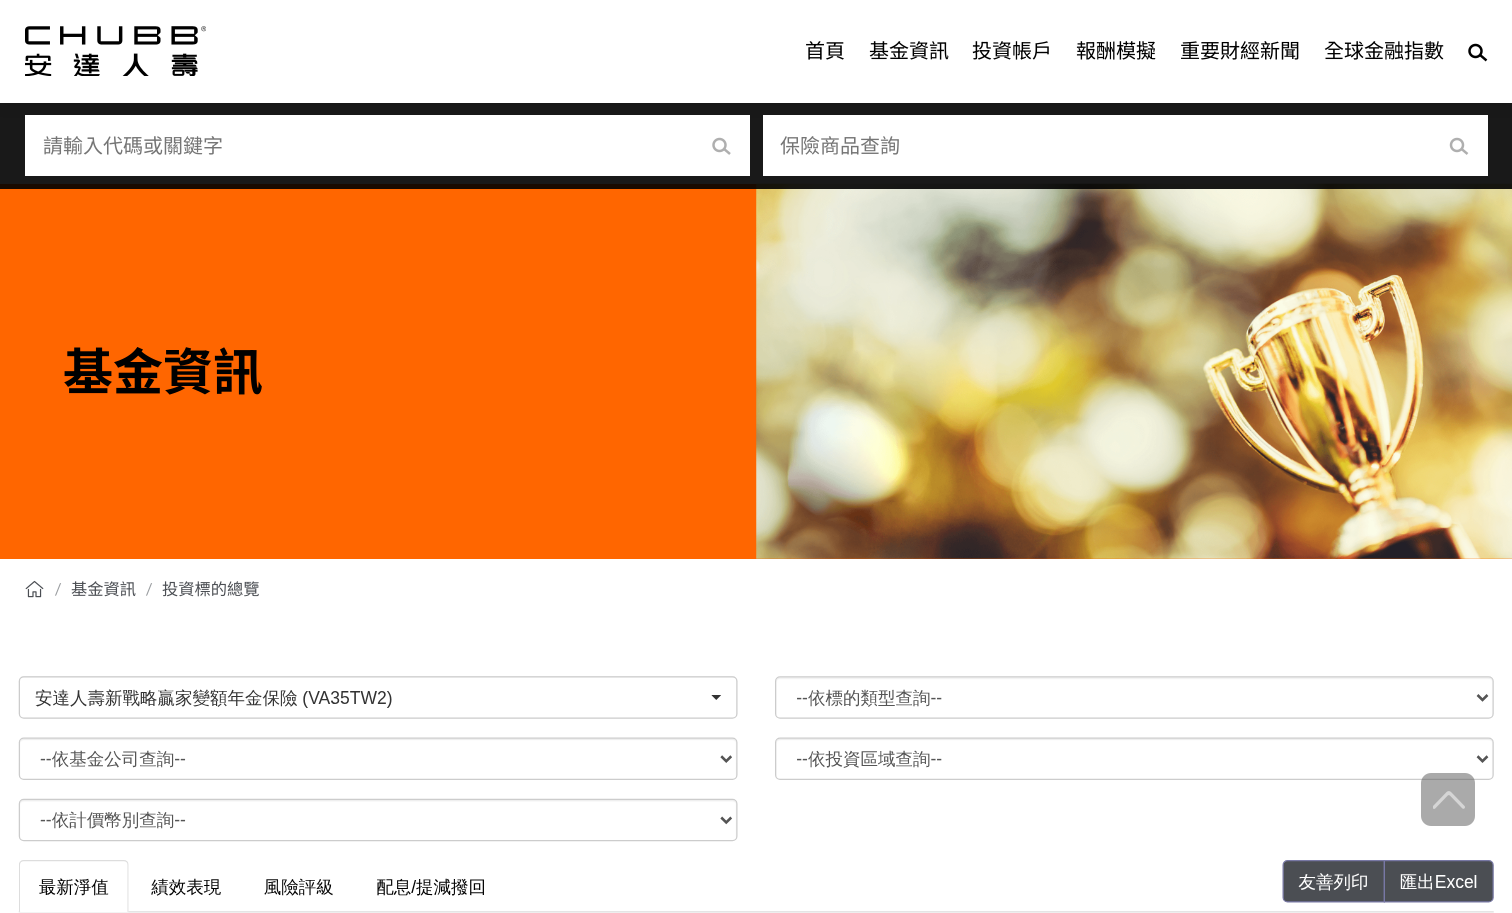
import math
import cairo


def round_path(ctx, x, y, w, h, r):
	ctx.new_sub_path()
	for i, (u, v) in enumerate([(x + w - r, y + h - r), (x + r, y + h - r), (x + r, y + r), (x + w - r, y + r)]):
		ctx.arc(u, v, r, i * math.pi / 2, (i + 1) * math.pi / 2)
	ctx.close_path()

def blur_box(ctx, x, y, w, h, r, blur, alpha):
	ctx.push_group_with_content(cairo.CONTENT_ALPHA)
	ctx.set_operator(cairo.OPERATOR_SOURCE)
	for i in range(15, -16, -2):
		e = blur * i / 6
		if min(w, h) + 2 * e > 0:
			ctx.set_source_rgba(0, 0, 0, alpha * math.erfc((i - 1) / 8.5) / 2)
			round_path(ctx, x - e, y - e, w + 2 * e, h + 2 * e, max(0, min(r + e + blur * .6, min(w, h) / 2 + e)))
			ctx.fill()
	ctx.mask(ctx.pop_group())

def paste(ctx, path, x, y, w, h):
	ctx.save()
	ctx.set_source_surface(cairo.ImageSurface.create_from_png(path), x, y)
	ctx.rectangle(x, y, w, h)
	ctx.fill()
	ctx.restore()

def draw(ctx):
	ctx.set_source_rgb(1, 1, 1)
	ctx.paint()
	ctx.set_source_rgb(0, 0, 0)
	blur_box(ctx, 0, 5, 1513, 103, 0, 12.5, 0.1)
	ctx.set_source_rgb(1, 1, 1)
	ctx.rectangle(0, 0, 1512, 103)
	ctx.fill()
	paste(ctx, 'media/1.png', 25, 26, 181, 50)
	ctx.select_font_face('Noto Sans TC')
	ctx.set_font_size(20)
	ctx.set_source_rgb(0, 0, 0)
	for x, y, s in [
		(805, 58, '首頁'),
		(869, 58, '基金資訊'),
		(972, 58, '投資帳戶'),
		(1076, 58, '報酬模擬'),
		(1180, 58, '重要財經新聞'),
		(1324, 58, '全球金融指數'),
	]:
		ctx.move_to(x, y)
		ctx.show_text(s)
	ctx.new_path()
	ctx.arc(1475.5, 51, 6, 0, 2 * math.pi)
	ctx.set_line_width(2.5)
	ctx.stroke()
	ctx.new_path()
	ctx.move_to(1479.5, 54.5)
	ctx.line_to(1486.5, 60.5)
	ctx.stroke()
	ctx.set_source_rgb(1, 0.4, 0)
	ctx.rectangle(0, 184, 1512, 375)
	ctx.fill()
	paste(ctx, 'media/2.png', 756, 183, 756, 376)
	ctx.set_source_rgba(0, 0, 0, 0.9)
	ctx.rectangle(0, 103, 1512, 86)
	ctx.fill()
	ctx.set_source_rgb(1, 1, 1)
	ctx.rectangle(25, 115, 725, 61)
	ctx.fill()
	ctx.arc(719.5, 145, 6, 0, 2 * math.pi)
	ctx.set_source_rgb(0.686, 0.686, 0.686)
	ctx.stroke()
	ctx.new_path()
	ctx.move_to(723.5, 148.5)
	ctx.line_to(730, 154)
	ctx.stroke()
	ctx.set_source_rgb(0.459, 0.459, 0.459)
	ctx.move_to(43, 153)
	ctx.show_text('請輸入代碼或關鍵字')
	ctx.set_source_rgb(1, 1, 1)
	ctx.rectangle(763, 115, 725, 61)
	ctx.fill()
	ctx.arc(1457, 145, 6, 0, 2 * math.pi)
	ctx.set_source_rgb(0.686, 0.686, 0.686)
	ctx.stroke()
	ctx.new_path()
	ctx.move_to(1461, 148.5)
	ctx.line_to(1467.5, 154)
	ctx.stroke()
	ctx.set_source_rgb(0.459, 0.459, 0.459)
	ctx.move_to(780, 153)
	ctx.show_text('保險商品查詢')
	ctx.select_font_face('Noto Sans TC', cairo.FONT_SLANT_NORMAL, cairo.FONT_WEIGHT_BOLD)
	ctx.set_font_size(50)
	ctx.set_source_rgb(0, 0, 0)
	ctx.move_to(63, 390)
	ctx.show_text('基金資訊')
	paste(ctx, 'media/3.png', 25, 580, 19, 18)
	ctx.select_font_face('Lato')
	ctx.set_font_size(16.25)
	ctx.set_source_rgb(0.604, 0.616, 0.627)
	ctx.move_to(55, 595)
	ctx.show_text('/')
	ctx.select_font_face('Noto Sans TC')
	ctx.set_source_rgb(0.294, 0.306, 0.325)
	ctx.move_to(71, 595)
	ctx.show_text('基金資訊')
	ctx.select_font_face('Lato')
	ctx.set_source_rgb(0.604, 0.616, 0.627)
	ctx.move_to(146, 595)
	ctx.show_text('/')
	ctx.select_font_face('Noto Sans TC')
	ctx.set_source_rgb(0.294, 0.306, 0.325)
	ctx.move_to(162, 595)
	ctx.show_text('投資標的總覽')
	paste(ctx, 'media/4.png', 18, 676, 1476, 237)
	ctx.set_source_rgba(0.337, 0.337, 0.337, 0.5)
	round_path(ctx, 1421, 773, 54, 53, 10)
	ctx.fill()
	paste(ctx, 'media/5.png', 1433, 791, 32, 18)


surface = cairo.ImageSurface(cairo.FORMAT_RGB24, 1512, 913)
ctx = cairo.Context(surface)
options = cairo.FontOptions()
options.set_hint_metrics(cairo.HINT_METRICS_OFF)
options.set_hint_style(cairo.HINT_STYLE_NONE)
ctx.set_font_options(options)
ctx.set_miter_limit(4)
draw(ctx)
surface.write_to_png('image.png')
